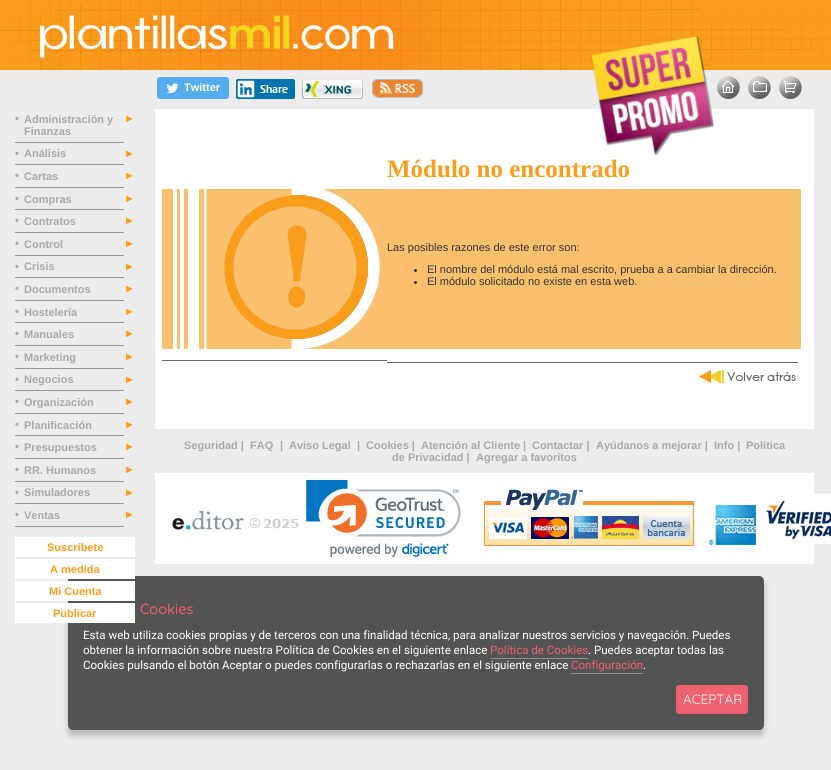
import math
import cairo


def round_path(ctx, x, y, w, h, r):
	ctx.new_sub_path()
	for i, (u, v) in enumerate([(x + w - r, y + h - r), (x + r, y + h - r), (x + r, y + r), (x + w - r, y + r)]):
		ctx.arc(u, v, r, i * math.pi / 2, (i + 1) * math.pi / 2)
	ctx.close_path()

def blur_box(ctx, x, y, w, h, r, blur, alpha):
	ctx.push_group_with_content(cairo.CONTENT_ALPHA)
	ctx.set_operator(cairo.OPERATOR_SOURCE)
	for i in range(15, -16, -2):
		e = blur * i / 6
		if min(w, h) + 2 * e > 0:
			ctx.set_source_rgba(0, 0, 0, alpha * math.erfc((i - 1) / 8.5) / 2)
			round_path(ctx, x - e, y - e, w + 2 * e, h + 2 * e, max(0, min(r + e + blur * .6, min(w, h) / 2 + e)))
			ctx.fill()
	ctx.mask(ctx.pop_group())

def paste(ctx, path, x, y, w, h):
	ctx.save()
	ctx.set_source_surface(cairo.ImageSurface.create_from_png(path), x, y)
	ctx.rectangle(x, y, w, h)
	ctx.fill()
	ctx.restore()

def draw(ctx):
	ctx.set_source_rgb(0.922, 0.922, 0.922)
	ctx.paint()
	paste(ctx, 'media/1.png', 581, 0, 250, 70)
	paste(ctx, 'media/2.png', 0, 0, 581, 70)
	paste(ctx, 'media/3.png', 40, 15, 354, 43)
	paste(ctx, 'media/4.png', 651, 0, 180, 69)
	ctx.set_source_rgb(0.333, 0.675, 0.933)
	round_path(ctx, 157, 77, 72, 22, 3)
	ctx.fill()
	paste(ctx, 'media/5.png', 166, 83, 13, 11)
	ctx.select_font_face('Liberation Sans', cairo.FONT_SLANT_NORMAL, cairo.FONT_WEIGHT_BOLD)
	ctx.set_font_size(11)
	ctx.set_source_rgb(1, 1, 1)
	ctx.move_to(184, 91)
	ctx.show_text('Twitter')
	paste(ctx, 'media/6.png', 236, 79, 59, 20)
	paste(ctx, 'media/7.png', 302, 79, 61, 20)
	paste(ctx, 'media/8.png', 372, 79, 51, 19)
	paste(ctx, 'media/9.png', 717, 76, 23, 23)
	paste(ctx, 'media/10.png', 748, 76, 23, 23)
	paste(ctx, 'media/11.png', 779, 76, 23, 23)
	ctx.rectangle(155, 109, 659, 320)
	ctx.fill()
	paste(ctx, 'media/12.png', 591, 36, 124, 120)
	ctx.set_source_rgb(0.6, 0.6, 0.6)
	ctx.rectangle(15, 142, 109, 1)
	ctx.fill()
	ctx.set_source_rgb(0.659, 0.663, 0.675)
	for x, y, s in [
		(15, 122, '•'),
		(24, 123, 'Administración y'),
		(24, 135, 'Finanzas'),
	]:
		ctx.move_to(x, y)
		ctx.show_text(s)
	ctx.set_source_rgb(0.98, 0.616, 0.102)
	ctx.move_to(124, 122)
	ctx.show_text('►')
	ctx.set_source_rgb(0.6, 0.6, 0.6)
	ctx.rectangle(15, 164, 109, 1)
	ctx.fill()
	ctx.set_source_rgb(0.659, 0.663, 0.675)
	ctx.move_to(15, 157)
	ctx.show_text('•')
	ctx.move_to(24, 157)
	ctx.show_text('Análisis')
	ctx.set_source_rgb(0.98, 0.616, 0.102)
	ctx.move_to(124, 157)
	ctx.show_text('►')
	ctx.set_source_rgb(0.6, 0.6, 0.6)
	ctx.rectangle(15, 187, 109, 1)
	ctx.fill()
	ctx.set_source_rgb(0.659, 0.663, 0.675)
	ctx.move_to(15, 179)
	ctx.show_text('•')
	ctx.move_to(24, 180)
	ctx.show_text('Cartas')
	ctx.set_source_rgb(0.98, 0.616, 0.102)
	ctx.move_to(124, 179)
	ctx.show_text('►')
	ctx.set_source_rgb(0.6, 0.6, 0.6)
	ctx.rectangle(15, 209, 109, 1)
	ctx.fill()
	ctx.set_source_rgb(0.659, 0.663, 0.675)
	ctx.move_to(15, 202)
	ctx.show_text('•')
	ctx.move_to(24, 203)
	ctx.show_text('Compras')
	ctx.set_source_rgb(0.98, 0.616, 0.102)
	ctx.move_to(124, 202)
	ctx.show_text('►')
	ctx.set_source_rgb(0.6, 0.6, 0.6)
	ctx.rectangle(15, 232, 109, 1)
	ctx.fill()
	ctx.set_source_rgb(0.659, 0.663, 0.675)
	ctx.move_to(15, 224)
	ctx.show_text('•')
	ctx.move_to(24, 225)
	ctx.show_text('Contratos')
	ctx.set_source_rgb(0.98, 0.616, 0.102)
	ctx.move_to(124, 224)
	ctx.show_text('►')
	ctx.set_source_rgb(0.6, 0.6, 0.6)
	ctx.rectangle(15, 255, 109, 1)
	ctx.fill()
	ctx.set_source_rgb(0.659, 0.663, 0.675)
	ctx.move_to(15, 247)
	ctx.show_text('•')
	ctx.move_to(24, 248)
	ctx.show_text('Control')
	ctx.set_source_rgb(0.98, 0.616, 0.102)
	ctx.move_to(124, 247)
	ctx.show_text('►')
	ctx.set_source_rgb(0.6, 0.6, 0.6)
	ctx.rectangle(15, 277, 109, 1)
	ctx.fill()
	ctx.set_source_rgb(0.659, 0.663, 0.675)
	ctx.move_to(15, 270)
	ctx.show_text('•')
	ctx.move_to(24, 270)
	ctx.show_text('Crisis')
	ctx.set_source_rgb(0.98, 0.616, 0.102)
	ctx.move_to(124, 270)
	ctx.show_text('►')
	ctx.set_source_rgb(0.6, 0.6, 0.6)
	ctx.rectangle(15, 300, 109, 1)
	ctx.fill()
	ctx.set_source_rgb(0.659, 0.663, 0.675)
	ctx.move_to(15, 292)
	ctx.show_text('•')
	ctx.move_to(24, 293)
	ctx.show_text('Documentos')
	ctx.set_source_rgb(0.98, 0.616, 0.102)
	ctx.move_to(124, 292)
	ctx.show_text('►')
	ctx.set_source_rgb(0.6, 0.6, 0.6)
	ctx.rectangle(15, 322, 109, 1)
	ctx.fill()
	ctx.set_source_rgb(0.659, 0.663, 0.675)
	ctx.move_to(15, 315)
	ctx.show_text('•')
	ctx.move_to(24, 316)
	ctx.show_text('Hostelería')
	ctx.set_source_rgb(0.98, 0.616, 0.102)
	ctx.move_to(124, 315)
	ctx.show_text('►')
	ctx.set_source_rgb(0.6, 0.6, 0.6)
	ctx.rectangle(15, 345, 109, 1)
	ctx.fill()
	ctx.set_source_rgb(0.659, 0.663, 0.675)
	ctx.move_to(15, 337)
	ctx.show_text('•')
	ctx.move_to(24, 338)
	ctx.show_text('Manuales')
	ctx.set_source_rgb(0.98, 0.616, 0.102)
	ctx.move_to(124, 337)
	ctx.show_text('►')
	ctx.set_source_rgb(0.6, 0.6, 0.6)
	ctx.rectangle(15, 368, 109, 1)
	ctx.fill()
	ctx.set_source_rgb(0.659, 0.663, 0.675)
	ctx.move_to(15, 360)
	ctx.show_text('•')
	ctx.move_to(24, 361)
	ctx.show_text('Marketing')
	ctx.set_source_rgb(0.98, 0.616, 0.102)
	ctx.move_to(124, 360)
	ctx.show_text('►')
	ctx.set_source_rgb(0.6, 0.6, 0.6)
	ctx.rectangle(15, 390, 109, 1)
	ctx.fill()
	ctx.set_source_rgb(0.659, 0.663, 0.675)
	ctx.move_to(15, 383)
	ctx.show_text('•')
	ctx.move_to(24, 383)
	ctx.show_text('Negocios')
	ctx.set_source_rgb(0.98, 0.616, 0.102)
	ctx.move_to(124, 383)
	ctx.show_text('►')
	ctx.set_source_rgb(0.6, 0.6, 0.6)
	ctx.rectangle(15, 413, 109, 1)
	ctx.fill()
	ctx.set_source_rgb(0.659, 0.663, 0.675)
	ctx.move_to(15, 405)
	ctx.show_text('•')
	ctx.move_to(24, 406)
	ctx.show_text('Organización')
	ctx.set_source_rgb(0.98, 0.616, 0.102)
	ctx.move_to(124, 405)
	ctx.show_text('►')
	ctx.set_source_rgb(0.6, 0.6, 0.6)
	ctx.rectangle(15, 435, 109, 1)
	ctx.fill()
	ctx.set_source_rgb(0.659, 0.663, 0.675)
	ctx.move_to(15, 428)
	ctx.show_text('•')
	ctx.move_to(24, 429)
	ctx.show_text('Planificación')
	ctx.set_source_rgb(0.98, 0.616, 0.102)
	ctx.move_to(124, 428)
	ctx.show_text('►')
	ctx.set_source_rgb(0.6, 0.6, 0.6)
	ctx.rectangle(15, 458, 109, 1)
	ctx.fill()
	ctx.set_source_rgb(0.659, 0.663, 0.675)
	ctx.move_to(15, 450)
	ctx.show_text('•')
	ctx.move_to(24, 451)
	ctx.show_text('Presupuestos')
	ctx.set_source_rgb(0.98, 0.616, 0.102)
	ctx.move_to(124, 450)
	ctx.show_text('►')
	ctx.set_source_rgb(0.6, 0.6, 0.6)
	ctx.rectangle(15, 481, 109, 1)
	ctx.fill()
	ctx.set_source_rgb(0.659, 0.663, 0.675)
	ctx.move_to(15, 473)
	ctx.show_text('•')
	ctx.move_to(24, 474)
	ctx.show_text('RR. Humanos')
	ctx.set_source_rgb(0.98, 0.616, 0.102)
	ctx.move_to(124, 473)
	ctx.show_text('►')
	ctx.set_source_rgb(0.6, 0.6, 0.6)
	ctx.rectangle(15, 503, 109, 1)
	ctx.fill()
	ctx.set_source_rgb(0.659, 0.663, 0.675)
	ctx.move_to(15, 496)
	ctx.show_text('•')
	ctx.move_to(24, 496)
	ctx.show_text('Simuladores')
	ctx.set_source_rgb(0.98, 0.616, 0.102)
	ctx.move_to(124, 496)
	ctx.show_text('►')
	ctx.set_source_rgb(0.6, 0.6, 0.6)
	ctx.rectangle(15, 526, 109, 1)
	ctx.fill()
	ctx.set_source_rgb(0.659, 0.663, 0.675)
	ctx.move_to(15, 518)
	ctx.show_text('•')
	ctx.move_to(24, 519)
	ctx.show_text('Ventas')
	ctx.set_source_rgb(0.98, 0.616, 0.102)
	ctx.move_to(124, 518)
	ctx.show_text('►')
	ctx.set_source_rgb(1, 1, 1)
	ctx.rectangle(15, 537, 120, 20)
	ctx.fill()
	ctx.set_source_rgb(0.98, 0.616, 0.102)
	ctx.move_to(47, 551)
	ctx.show_text('Suscríbete')
	ctx.set_source_rgb(0.125, 0.125, 0.125)
	blur_box(ctx, 68, 582, 696, 154, 5, 3, 0.25)
	ctx.set_source_rgb(0.325, 0.325, 0.325)
	round_path(ctx, 68, 576, 696, 154, 5)
	ctx.fill()
	ctx.set_source_rgb(1, 1, 1)
	ctx.rectangle(15, 559, 120, 20)
	ctx.fill()
	ctx.set_source_rgb(0.98, 0.616, 0.102)
	ctx.move_to(50, 573)
	ctx.show_text('A medida')
	ctx.set_source_rgb(1, 1, 1)
	ctx.rectangle(15, 581, 120, 20)
	ctx.fill()
	ctx.set_source_rgb(0.98, 0.616, 0.102)
	ctx.move_to(49, 595)
	ctx.show_text('Mi Cuenta')
	ctx.set_source_rgb(1, 1, 1)
	ctx.rectangle(15, 603, 120, 20)
	ctx.fill()
	ctx.set_source_rgb(0.98, 0.616, 0.102)
	ctx.move_to(53, 617)
	ctx.show_text('Publicar')
	ctx.select_font_face('Liberation Serif', cairo.FONT_SLANT_NORMAL, cairo.FONT_WEIGHT_BOLD)
	ctx.set_font_size(25)
	ctx.move_to(387, 177)
	ctx.show_text('Módulo no encontrado')
	paste(ctx, 'media/13.png', 162, 189, 225, 160)
	ctx.set_source_rgb(0.98, 0.753, 0.431)
	ctx.rectangle(387, 189, 414, 160)
	ctx.fill()
	ctx.select_font_face('Liberation Sans')
	ctx.set_font_size(11)
	ctx.set_source_rgb(0.2, 0.2, 0.2)
	ctx.move_to(387, 251)
	ctx.show_text('Las posibles razones de este error son:')
	ctx.new_path()
	ctx.arc(415.5, 270.5, 1.5, 0, 2 * math.pi)
	ctx.fill()
	ctx.move_to(427, 273)
	ctx.show_text('El nombre del módulo está mal escrito, prueba a a cambiar la dirección.')
	ctx.new_path()
	ctx.arc(415.5, 282.5, 1.5, 0, 2 * math.pi)
	ctx.fill()
	ctx.move_to(427, 285)
	ctx.show_text('El módulo solicitado no existe en esta web.')
	ctx.set_source_rgb(0.4, 0.4, 0.4)
	ctx.rectangle(162, 360, 225, 1)
	ctx.fill()
	ctx.rectangle(387, 362, 411, 1)
	ctx.fill()
	paste(ctx, 'media/14.png', 699, 370, 97, 13)
	ctx.select_font_face('Liberation Sans', cairo.FONT_SLANT_NORMAL, cairo.FONT_WEIGHT_BOLD)
	ctx.set_source_rgb(0.659, 0.663, 0.675)
	for x, y, s in [
		(184, 449, 'Seguridad |'),
		(250, 449, 'FAQ'),
		(280, 449, '|'),
		(289, 449, 'Aviso Legal'),
		(357, 449, '|'),
		(366, 449, 'Cookies |'),
		(421, 449, 'Atención al Cliente |'),
		(532, 449, 'Contactar |'),
		(596, 449, 'Ayúdanos a mejorar |'),
		(714, 449, 'Info |'),
		(746, 449, 'Política'),
		(392, 461, 'de Privacidad |'),
		(476, 461, 'Agregar a favoritos'),
	]:
		ctx.move_to(x, y)
		ctx.show_text(s)
	ctx.set_source_rgb(1, 1, 1)
	ctx.rectangle(155, 473, 659, 91)
	ctx.fill()
	paste(ctx, 'media/15.png', 172, 507, 127, 24)
	paste(ctx, 'media/16.png', 306, 480, 155, 77)
	paste(ctx, 'media/17.png', 480, 487, 218, 59)
	paste(ctx, 'media/18.png', 709, 505, 47, 40)
	paste(ctx, 'media/19.png', 765, 494, 66, 50)
	ctx.select_font_face('Quicksand Medium')
	ctx.set_font_size(14.5)
	ctx.set_source_rgb(0.933, 0.38, 0.431)
	ctx.move_to(140, 614)
	ctx.show_text('Cookies')
	ctx.select_font_face('Roboto')
	ctx.set_font_size(11.55)
	ctx.set_source_rgb(1, 1, 1)
	ctx.move_to(83, 639)
	ctx.show_text('Esta web utiliza cookies propias y de terceros con una finalidad técnica, para analizar nuestros servicios y navegación. Puedes')
	ctx.move_to(83, 654)
	ctx.show_text('obtener la información sobre nuestra Política de Cookies en el siguiente enlace')
	ctx.set_source_rgb(0.933, 0.38, 0.431)
	ctx.move_to(490, 654)
	ctx.show_text('Política de Cookies')
	ctx.new_path()
	ctx.move_to(490.5, 658.5)
	ctx.line_to(588.5, 658.5)
	ctx.set_source_rgb(0.824, 0.824, 0.824)
	ctx.set_line_width(1)
	ctx.set_dash([1, 1])
	ctx.stroke()
	ctx.set_source_rgb(1, 1, 1)
	ctx.move_to(588, 654)
	ctx.show_text('. Puedes aceptar todas las')
	ctx.move_to(83, 669)
	ctx.show_text('Cookies pulsando el botón Aceptar o puedes configurarlas o rechazarlas en el siguiente enlace')
	ctx.set_source_rgb(0.933, 0.38, 0.431)
	ctx.move_to(571, 669)
	ctx.show_text('Configuración')
	ctx.new_path()
	ctx.move_to(571.5, 673.5)
	ctx.line_to(643.5, 673.5)
	ctx.set_source_rgb(0.824, 0.824, 0.824)
	ctx.stroke()
	ctx.set_source_rgb(1, 1, 1)
	ctx.move_to(643, 669)
	ctx.show_text('.')
	ctx.set_source_rgb(0.933, 0.38, 0.431)
	round_path(ctx, 676, 685, 72, 29, 3)
	ctx.fill()
	ctx.select_font_face('Quicksand')
	ctx.set_font_size(13.5)
	ctx.set_source_rgb(1, 1, 1)
	ctx.move_to(683, 704)
	ctx.show_text('ACEPTAR')


surface = cairo.ImageSurface(cairo.FORMAT_RGB24, 831, 770)
ctx = cairo.Context(surface)
options = cairo.FontOptions()
options.set_hint_metrics(cairo.HINT_METRICS_OFF)
options.set_hint_style(cairo.HINT_STYLE_NONE)
ctx.set_font_options(options)
ctx.set_miter_limit(4)
draw(ctx)
surface.write_to_png('image.png')
